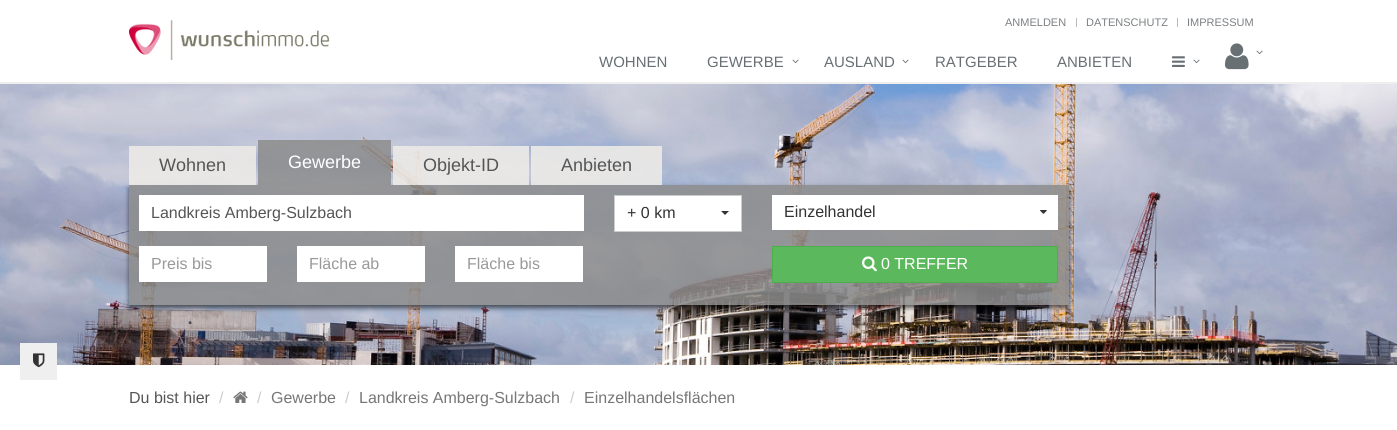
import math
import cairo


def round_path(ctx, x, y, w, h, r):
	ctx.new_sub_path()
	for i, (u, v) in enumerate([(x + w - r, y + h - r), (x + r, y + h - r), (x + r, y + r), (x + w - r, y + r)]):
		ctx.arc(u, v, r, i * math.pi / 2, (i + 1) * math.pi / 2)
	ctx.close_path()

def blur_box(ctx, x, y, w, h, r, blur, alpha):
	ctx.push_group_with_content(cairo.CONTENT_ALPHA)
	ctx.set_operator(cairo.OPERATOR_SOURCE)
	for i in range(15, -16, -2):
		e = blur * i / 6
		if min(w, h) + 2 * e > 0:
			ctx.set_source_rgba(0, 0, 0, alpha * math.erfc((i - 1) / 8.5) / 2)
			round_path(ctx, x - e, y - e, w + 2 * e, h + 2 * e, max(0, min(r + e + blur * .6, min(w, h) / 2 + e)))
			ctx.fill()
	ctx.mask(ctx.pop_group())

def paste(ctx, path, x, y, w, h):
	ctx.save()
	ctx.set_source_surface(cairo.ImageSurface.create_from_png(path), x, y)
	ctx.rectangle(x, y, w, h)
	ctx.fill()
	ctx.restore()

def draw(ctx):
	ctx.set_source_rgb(1, 1, 1)
	ctx.paint()
	paste(ctx, 'media/6.png', 0, 84, 1397, 281)
	ctx.set_source_rgb(0.937, 0.937, 0.937)
	ctx.rectangle(20, 343, 37, 37)
	ctx.fill()
	paste(ctx, 'media/1.png', 33, 353, 12, 15)
	ctx.set_source_rgb(0.933, 0.933, 0.933)
	ctx.rectangle(0, 82, 1397, 2)
	ctx.fill()
	paste(ctx, 'media/2.png', 129, 20, 201, 40)
	ctx.select_font_face('Liberation Sans')
	ctx.set_font_size(11)
	ctx.set_source_rgb(0.486, 0.502, 0.51)
	ctx.move_to(1005, 26)
	ctx.show_text('ANMELDEN')
	ctx.set_source_rgb(0.733, 0.733, 0.733)
	ctx.rectangle(1076, 18, 1, 9)
	ctx.fill()
	ctx.set_source_rgb(0.486, 0.502, 0.51)
	ctx.move_to(1086, 26)
	ctx.show_text('DATENSCHUTZ')
	ctx.set_source_rgb(0.733, 0.733, 0.733)
	ctx.rectangle(1177, 18, 1, 9)
	ctx.fill()
	ctx.set_source_rgb(0.486, 0.502, 0.51)
	ctx.move_to(1187, 26)
	ctx.show_text('IMPRESSUM')
	ctx.set_font_size(15)
	ctx.set_source_rgb(0.408, 0.439, 0.455)
	ctx.move_to(599, 67)
	ctx.show_text('WOHNEN')
	ctx.move_to(707, 67)
	ctx.show_text('GEWERBE')
	paste(ctx, 'media/3.png', 792, 59, 7, 5)
	ctx.move_to(824, 67)
	ctx.show_text('AUSLAND')
	paste(ctx, 'media/3.png', 902, 59, 7, 5)
	ctx.move_to(935, 67)
	ctx.show_text('RATGEBER')
	ctx.move_to(1057, 67)
	ctx.show_text('ANBIETEN')
	paste(ctx, 'media/4.png', 1172, 56, 13, 11)
	paste(ctx, 'media/3.png', 1193, 59, 7, 5)
	paste(ctx, 'media/5.png', 1225, 43, 24, 27)
	paste(ctx, 'media/3.png', 1256, 50, 7, 5)
	ctx.save()
	ctx.set_fill_rule(cairo.FILL_RULE_EVEN_ODD)
	ctx.new_path()
	ctx.move_to(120, 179)
	ctx.line_to(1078, 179)
	ctx.line_to(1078, 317)
	ctx.line_to(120, 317)
	ctx.close_path()
	ctx.move_to(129, 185)
	ctx.line_to(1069, 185)
	ctx.line_to(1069, 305)
	ctx.line_to(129, 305)
	ctx.close_path()
	ctx.clip()
	ctx.set_source_rgb(0, 0, 0)
	blur_box(ctx, 129, 188, 940, 120, 0, 2.5, 0.6)
	ctx.restore()
	ctx.set_source_rgba(0.925, 0.918, 0.906, 0.9)
	ctx.rectangle(129, 146, 127, 39)
	ctx.fill()
	ctx.set_font_size(18)
	ctx.set_source_rgb(0.333, 0.333, 0.333)
	ctx.move_to(159, 171)
	ctx.show_text('Wohnen')
	ctx.set_source_rgba(0.549, 0.549, 0.549, 0.85)
	ctx.rectangle(258, 140, 133, 45)
	ctx.fill()
	ctx.set_source_rgb(1, 1, 1)
	ctx.move_to(288, 168)
	ctx.show_text('Gewerbe')
	ctx.set_source_rgba(0.925, 0.918, 0.906, 0.9)
	ctx.rectangle(393, 146, 136, 39)
	ctx.fill()
	ctx.set_source_rgb(0.333, 0.333, 0.333)
	ctx.move_to(423, 171)
	ctx.show_text('Objekt-ID')
	ctx.set_source_rgba(0.925, 0.918, 0.906, 0.9)
	ctx.rectangle(531, 146, 131, 39)
	ctx.fill()
	ctx.set_source_rgb(0.333, 0.333, 0.333)
	ctx.move_to(561, 171)
	ctx.show_text('Anbieten')
	ctx.set_source_rgba(0.549, 0.549, 0.549, 0.85)
	ctx.rectangle(129, 185, 940, 120)
	ctx.fill()
	ctx.set_source_rgb(1, 1, 1)
	ctx.rectangle(139, 195, 445, 36)
	ctx.fill()
	ctx.set_font_size(16)
	ctx.set_source_rgb(0.333, 0.333, 0.333)
	ctx.move_to(151, 218)
	ctx.show_text('Landkreis Amberg-Sulzbach')
	ctx.set_source_rgb(1, 1, 1)
	ctx.rectangle(614.5, 195.5, 127, 36)
	ctx.fill_preserve()
	ctx.set_source_rgb(0.8, 0.8, 0.8)
	ctx.set_line_width(1)
	ctx.stroke()
	ctx.set_source_rgb(0.2, 0.2, 0.2)
	ctx.move_to(627, 218)
	ctx.show_text('+ 0 km')
	ctx.new_path()
	ctx.move_to(721, 211)
	ctx.line_to(729, 211)
	ctx.line_to(725, 215)
	ctx.close_path()
	ctx.fill()
	ctx.set_source_rgb(1, 1, 1)
	ctx.rectangle(772, 195, 286, 35)
	ctx.fill()
	ctx.set_source_rgb(0.2, 0.2, 0.2)
	ctx.move_to(784, 217)
	ctx.show_text('Einzelhandel')
	paste(ctx, 'media/7.png', 1040, 210, 7, 4)
	ctx.set_source_rgb(1, 1, 1)
	ctx.rectangle(139, 246, 128, 36)
	ctx.fill()
	ctx.set_source_rgb(0.6, 0.6, 0.6)
	ctx.move_to(151, 269)
	ctx.show_text('Preis bis')
	ctx.set_source_rgb(1, 1, 1)
	ctx.rectangle(297, 246, 128, 36)
	ctx.fill()
	ctx.set_source_rgb(0.6, 0.6, 0.6)
	ctx.move_to(309, 269)
	ctx.show_text('Fläche ab')
	ctx.set_source_rgb(1, 1, 1)
	ctx.rectangle(455, 246, 128, 36)
	ctx.fill()
	ctx.set_source_rgb(0.6, 0.6, 0.6)
	ctx.move_to(467, 269)
	ctx.show_text('Fläche bis')
	ctx.set_source_rgb(0.361, 0.722, 0.361)
	ctx.rectangle(772.5, 246.5, 285, 36)
	ctx.fill_preserve()
	ctx.set_source_rgb(0.298, 0.682, 0.298)
	ctx.stroke()
	paste(ctx, 'media/8.png', 862, 256, 15, 16)
	ctx.set_source_rgb(1, 1, 1)
	ctx.move_to(881, 269)
	ctx.show_text('0 TREFFER')
	ctx.set_source_rgb(0.333, 0.333, 0.333)
	ctx.move_to(129, 403)
	ctx.show_text('Du bist hier')
	ctx.set_source_rgb(0.8, 0.8, 0.8)
	ctx.move_to(219, 403)
	ctx.show_text('/')
	paste(ctx, 'media/9.png', 233, 391, 15, 12)
	ctx.move_to(257, 403)
	ctx.show_text('/')
	ctx.set_source_rgb(0.467, 0.467, 0.467)
	ctx.move_to(271, 403)
	ctx.show_text('Gewerbe')
	ctx.set_source_rgb(0.8, 0.8, 0.8)
	ctx.move_to(345, 403)
	ctx.show_text('/')
	ctx.set_source_rgb(0.467, 0.467, 0.467)
	ctx.move_to(359, 403)
	ctx.show_text('Landkreis Amberg-Sulzbach')
	ctx.set_source_rgb(0.8, 0.8, 0.8)
	ctx.move_to(570, 403)
	ctx.show_text('/')
	ctx.set_source_rgb(0.467, 0.467, 0.467)
	ctx.move_to(584, 403)
	ctx.show_text('Einzelhandelsflächen')


surface = cairo.ImageSurface(cairo.FORMAT_RGB24, 1397, 430)
ctx = cairo.Context(surface)
options = cairo.FontOptions()
options.set_hint_metrics(cairo.HINT_METRICS_OFF)
options.set_hint_style(cairo.HINT_STYLE_NONE)
ctx.set_font_options(options)
ctx.set_miter_limit(4)
draw(ctx)
surface.write_to_png('image.png')
